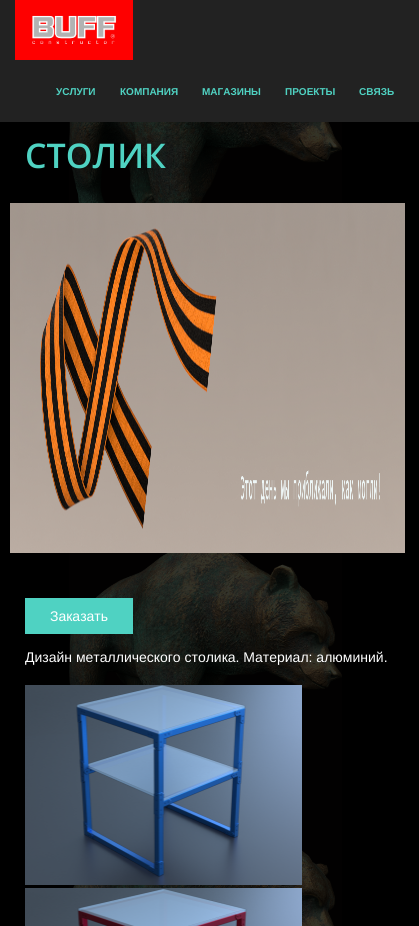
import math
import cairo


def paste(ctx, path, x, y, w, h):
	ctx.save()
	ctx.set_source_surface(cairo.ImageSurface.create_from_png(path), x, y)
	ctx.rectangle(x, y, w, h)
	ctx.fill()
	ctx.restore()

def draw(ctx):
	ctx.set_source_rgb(0, 0, 0)
	ctx.paint()
	ctx.set_source_rgb(0.133, 0.133, 0.133)
	ctx.rectangle(0, 0, 419, 122)
	ctx.fill()
	paste(ctx, 'media/1.png', 15, 0, 118, 60)
	ctx.select_font_face('Liberation Sans', cairo.FONT_SLANT_NORMAL, cairo.FONT_WEIGHT_BOLD)
	ctx.set_font_size(10)
	ctx.set_source_rgb(0.31, 0.824, 0.761)
	for x, y, s in [
		(56, 95, 'УСЛУГИ'),
		(120, 95, 'КОМПАНИЯ'),
		(202, 95, 'МАГАЗИНЫ'),
		(285, 95, 'ПРОЕКТЫ'),
		(359, 95, 'СВЯЗЬ'),
	]:
		ctx.move_to(x, y)
		ctx.show_text(s)
	paste(ctx, 'media/2.png', 69, 122, 273, 804)
	ctx.select_font_face('Open Sans SemiBold')
	ctx.set_font_size(34)
	ctx.move_to(25, 168)
	ctx.show_text('СТОЛИК')
	paste(ctx, 'media/3.png', 10, 203, 395, 350)
	ctx.rectangle(25, 598, 108, 36)
	ctx.fill()
	ctx.select_font_face('Liberation Sans')
	ctx.set_font_size(14)
	ctx.set_source_rgb(1, 1, 1)
	ctx.move_to(50, 621)
	ctx.show_text('Заказать')
	ctx.move_to(25, 662)
	ctx.show_text('Дизайн металлического столика. Материал: алюминий.')
	paste(ctx, 'media/4.png', 25, 685, 277, 200)
	paste(ctx, 'media/5.png', 25, 888, 277, 38)


surface = cairo.ImageSurface(cairo.FORMAT_RGB24, 419, 926)
ctx = cairo.Context(surface)
options = cairo.FontOptions()
options.set_hint_metrics(cairo.HINT_METRICS_OFF)
options.set_hint_style(cairo.HINT_STYLE_NONE)
ctx.set_font_options(options)
ctx.set_miter_limit(4)
draw(ctx)
surface.write_to_png('image.png')
